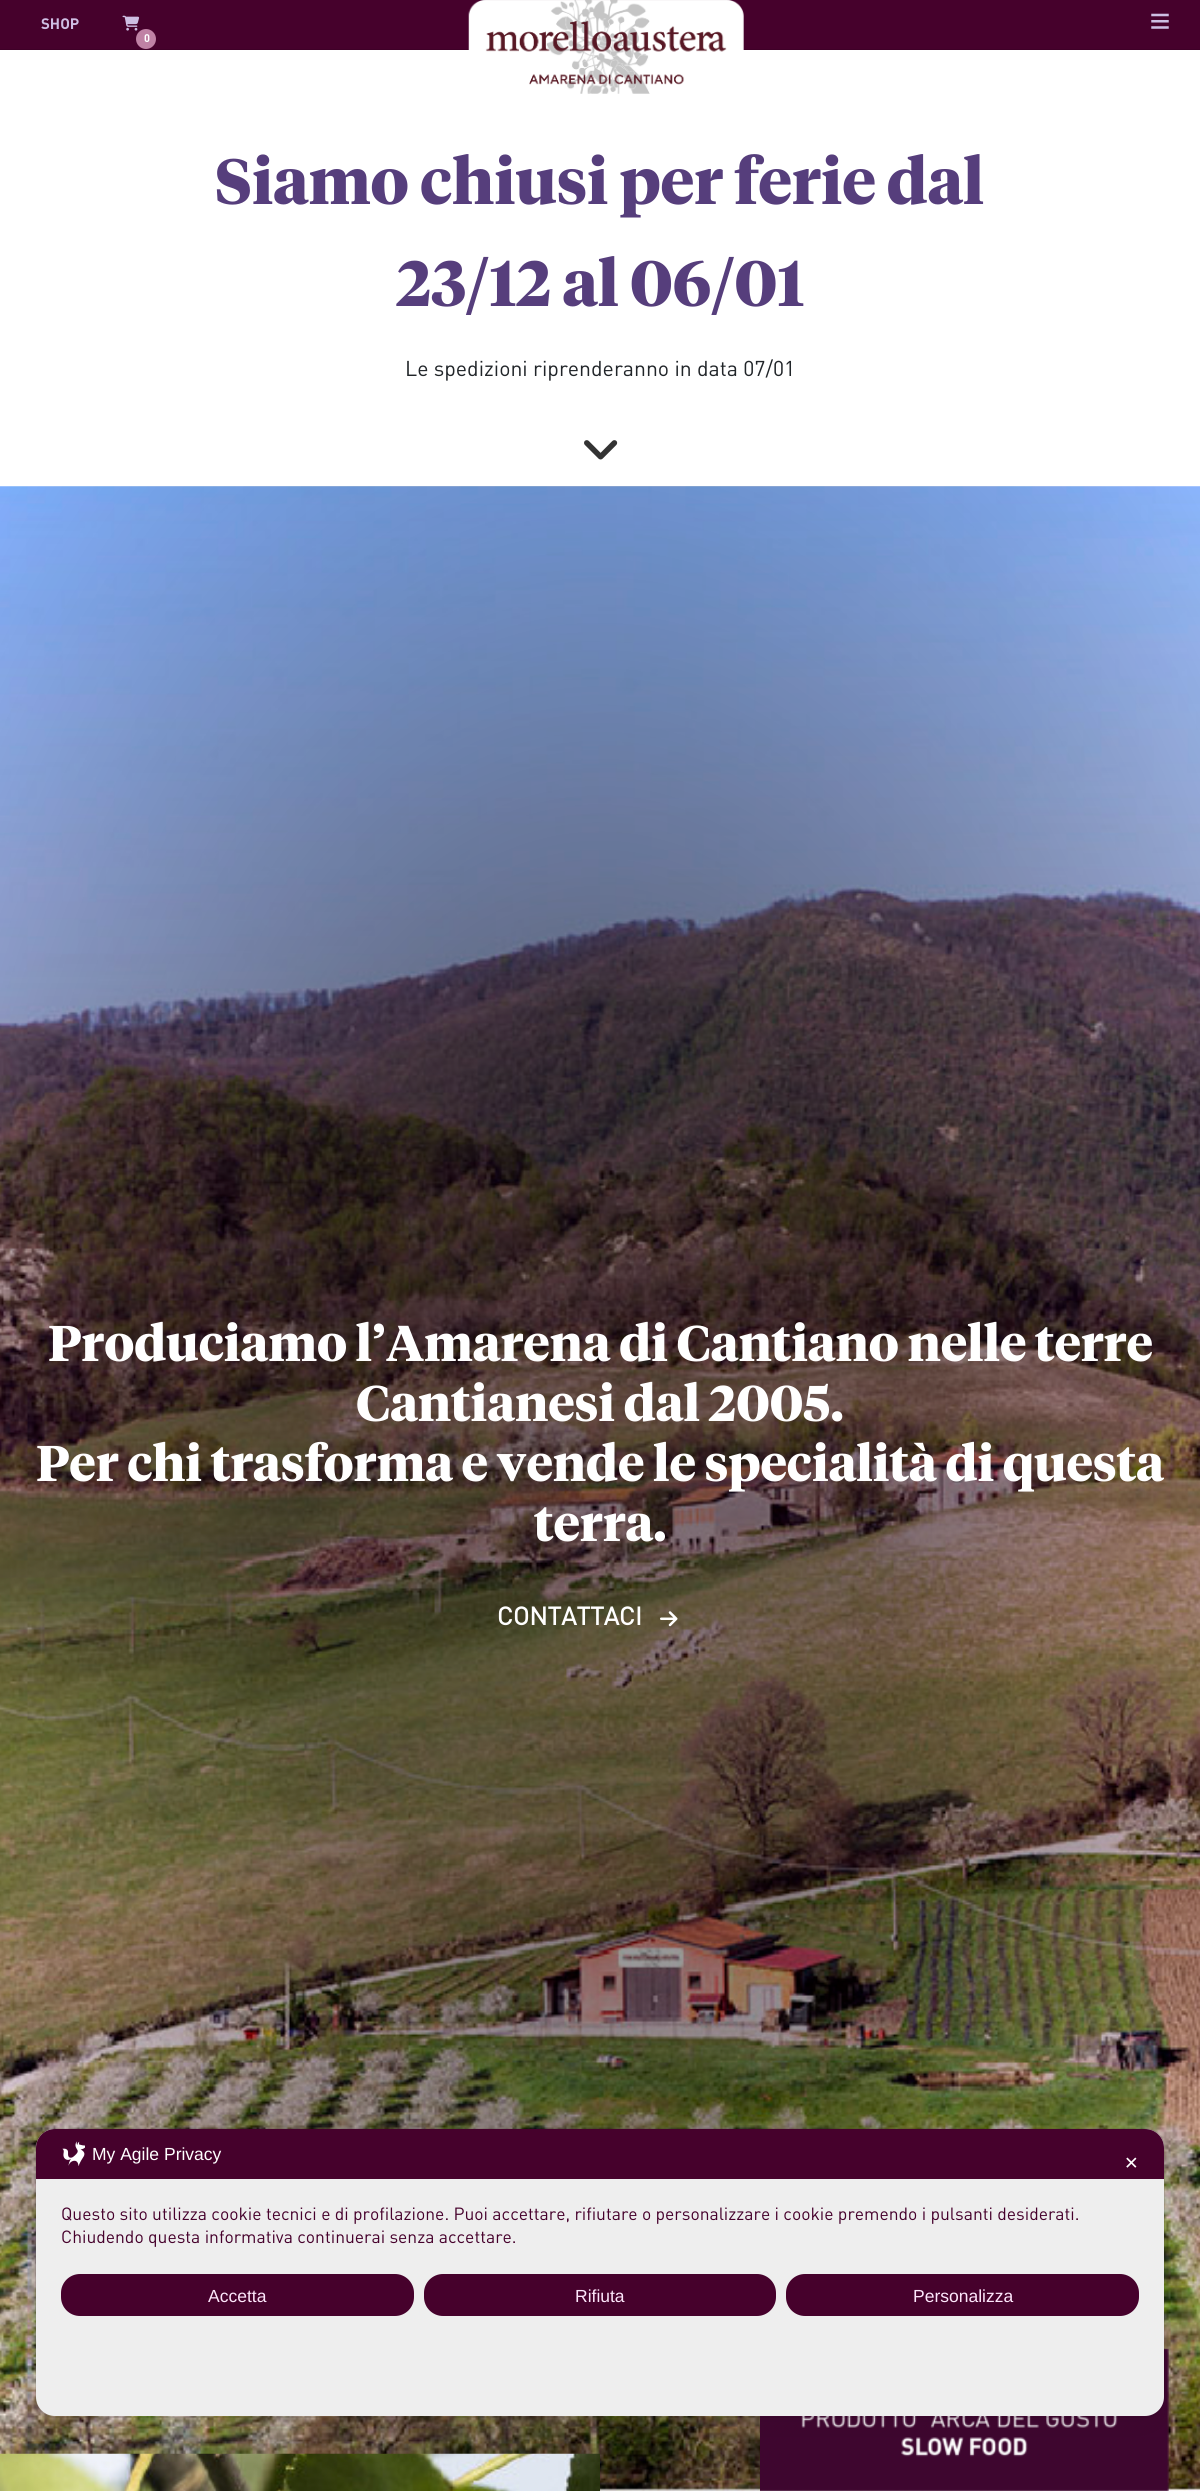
import math
import cairo


def round_path(ctx, x, y, w, h, r):
	ctx.new_sub_path()
	for i, (u, v) in enumerate([(x + w - r, y + h - r), (x + r, y + h - r), (x + r, y + r), (x + w - r, y + r)]):
		ctx.arc(u, v, r, i * math.pi / 2, (i + 1) * math.pi / 2)
	ctx.close_path()

def blur_box(ctx, x, y, w, h, r, blur, alpha):
	ctx.push_group_with_content(cairo.CONTENT_ALPHA)
	ctx.set_operator(cairo.OPERATOR_SOURCE)
	for i in range(15, -16, -2):
		e = blur * i / 6
		if min(w, h) + 2 * e > 0:
			ctx.set_source_rgba(0, 0, 0, alpha * math.erfc((i - 1) / 8.5) / 2)
			round_path(ctx, x - e, y - e, w + 2 * e, h + 2 * e, max(0, min(r + e + blur * .6, min(w, h) / 2 + e)))
			ctx.fill()
	ctx.mask(ctx.pop_group())

def paste(ctx, path, x, y, w, h):
	ctx.save()
	ctx.set_source_surface(cairo.ImageSurface.create_from_png(path), x, y)
	ctx.rectangle(x, y, w, h)
	ctx.fill()
	ctx.restore()

def draw(ctx):
	ctx.set_source_rgb(1, 1, 1)
	ctx.paint()
	ctx.set_source_rgb(0.275, 0.004, 0.173)
	ctx.rectangle(0, 0, 1200, 49)
	ctx.fill()
	ctx.set_source_rgb(0.247, 0.004, 0.157)
	ctx.rectangle(0, 49, 1200, 1)
	ctx.fill()
	ctx.select_font_face('DIN', cairo.FONT_SLANT_NORMAL, cairo.FONT_WEIGHT_BOLD)
	ctx.set_font_size(15)
	ctx.set_source_rgb(0.808, 0.745, 0.89)
	ctx.move_to(41, 29)
	ctx.show_text('SHOP')
	paste(ctx, 'media/1.png', 122, 15, 18, 16)
	ctx.set_source_rgb(0.753, 0.51, 0.647)
	ctx.arc(146, 39, 10, 0, 2 * math.pi)
	ctx.fill()
	ctx.set_font_size(11)
	ctx.set_source_rgb(1, 1, 1)
	ctx.move_to(144, 42)
	ctx.show_text('0')
	paste(ctx, 'media/2.png', 468, 0, 276, 94)
	paste(ctx, 'media/3.png', 1151, 13, 18, 16)
	ctx.select_font_face('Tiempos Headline', cairo.FONT_SLANT_NORMAL, cairo.FONT_WEIGHT_BOLD)
	ctx.set_font_size(63.75)
	ctx.set_source_rgb(0.337, 0.243, 0.486)
	ctx.move_to(215, 204)
	ctx.show_text('Siamo chiusi per ferie dal')
	ctx.move_to(396, 306)
	ctx.show_text('23/12 al 06/01')
	ctx.select_font_face('DIN')
	ctx.set_font_size(21.25)
	ctx.set_source_rgb(0.129, 0.145, 0.161)
	ctx.move_to(405, 376)
	ctx.show_text('Le spedizioni riprenderanno in data 07/01')
	paste(ctx, 'media/4.png', 584, 440, 34, 20)
	paste(ctx, 'media/5.png', 0, 486, 1200, 2005)
	gradient = cairo.RadialGradient(0, 0, 0, 0, 0, 1)
	gradient.set_matrix(cairo.Matrix(1 / 849, 0, 0, 1 / 1418, -1 * 600 / 849, -1 * 1489 / 1418))
	gradient.add_color_stop_rgba(0.35, 0, 0, 0, 0.4)
	gradient.add_color_stop_rgba(1, 0, 0, 0, 0)
	ctx.set_source(gradient)
	ctx.rectangle(0, 486, 1200, 2005)
	ctx.fill()
	ctx.select_font_face('Tiempos Headline', cairo.FONT_SLANT_NORMAL, cairo.FONT_WEIGHT_BOLD)
	ctx.set_font_size(50)
	ctx.set_source_rgb(1, 1, 1)
	for x, y, s in [
		(48, 1361, 'Produciamo l’Amarena di Cantiano nelle terre'),
		(356, 1421, 'Cantianesi dal 2005.'),
		(36, 1481, 'Per chi trasforma e vende le specialità di questa'),
		(534, 1541, 'terra.'),
	]:
		ctx.move_to(x, y)
		ctx.show_text(s)
	ctx.select_font_face('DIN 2', cairo.FONT_SLANT_NORMAL, cairo.FONT_WEIGHT_BOLD)
	ctx.set_font_size(25)
	ctx.move_to(497, 1625)
	ctx.show_text('CONTATTACI')
	paste(ctx, 'media/6.png', 660, 1611, 18, 16)
	paste(ctx, 'media/7.png', 760, 2348, 409, 143)
	paste(ctx, 'media/8.png', 0, 2453, 600, 38)
	round_path(ctx, 35.5, 2128.5, 1129, 289, 19.5)
	ctx.set_source_rgba(0, 0, 0, 0.08)
	ctx.set_line_width(1)
	ctx.stroke()
	ctx.set_source_rgb(0, 0, 0)
	blur_box(ctx, 36, 2136, 1128, 288, 19, 15, 0.05)
	ctx.set_source_rgb(0.933, 0.933, 0.933)
	round_path(ctx, 36, 2129, 1128, 287, 19)
	ctx.fill()
	ctx.set_source_rgb(0.275, 0.004, 0.173)
	ctx.new_path()
	ctx.move_to(55, 2129)
	ctx.line_to(1145, 2129)
	ctx.curve_to(1155.5, 2129, 1164, 2137.5, 1164, 2148)
	ctx.line_to(1164, 2179)
	ctx.line_to(36, 2179)
	ctx.line_to(36, 2148)
	ctx.curve_to(36, 2137.5, 44.5, 2129, 55, 2129)
	ctx.close_path()
	ctx.fill()
	paste(ctx, 'media/9.png', 62, 2141, 23, 25)
	ctx.select_font_face('Liberation Sans')
	ctx.set_font_size(17.5)
	ctx.set_source_rgb(1, 1, 1)
	ctx.move_to(92, 2160)
	ctx.show_text('My Agile Privacy')
	ctx.select_font_face('DejaVu Sans')
	ctx.move_to(1124, 2169)
	ctx.show_text('✕')
	ctx.select_font_face('DIN')
	ctx.set_source_rgb(0.275, 0.004, 0.173)
	ctx.move_to(61, 2220)
	ctx.show_text('Questo sito utilizza cookie tecnici e di profilazione. Puoi accettare, rifiutare o personalizzare i cookie premendo i pulsanti desiderati.')
	ctx.move_to(61, 2243)
	ctx.show_text('Chiudendo questa informativa continuerai senza accettare.')
	round_path(ctx, 61, 2274, 353, 42, 19)
	ctx.fill()
	ctx.select_font_face('Liberation Sans')
	ctx.set_source_rgb(0.992, 0.906, 0.984)
	ctx.move_to(208, 2302)
	ctx.show_text('Accetta')
	ctx.set_source_rgb(0.275, 0.004, 0.173)
	round_path(ctx, 424, 2274, 352, 42, 19)
	ctx.fill()
	ctx.set_source_rgb(0.992, 0.906, 0.984)
	ctx.move_to(575, 2302)
	ctx.show_text('Rifiuta')
	ctx.set_source_rgb(0.275, 0.004, 0.173)
	round_path(ctx, 786, 2274, 353, 42, 19)
	ctx.fill()
	ctx.set_source_rgb(0.992, 0.906, 0.984)
	ctx.move_to(913, 2302)
	ctx.show_text('Personalizza')


surface = cairo.ImageSurface(cairo.FORMAT_RGB24, 1200, 2491)
ctx = cairo.Context(surface)
options = cairo.FontOptions()
options.set_hint_metrics(cairo.HINT_METRICS_OFF)
options.set_hint_style(cairo.HINT_STYLE_NONE)
ctx.set_font_options(options)
ctx.set_miter_limit(4)
draw(ctx)
surface.write_to_png('image.png')
